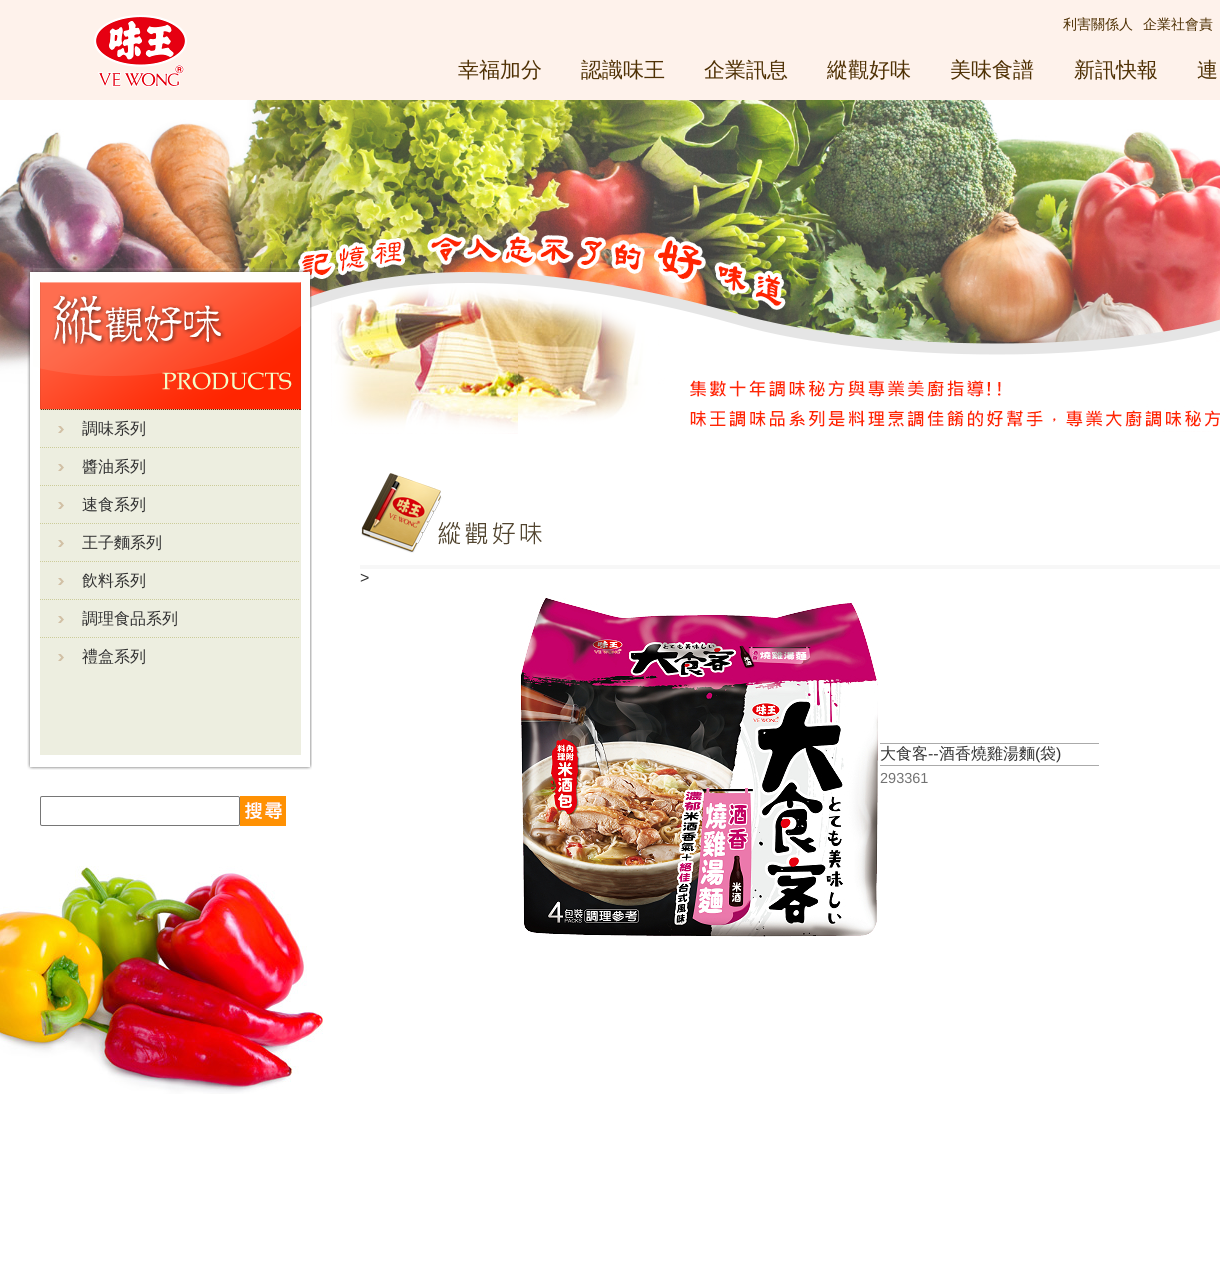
import math
import cairo


def round_path(ctx, x, y, w, h, r):
	ctx.new_sub_path()
	for i, (u, v) in enumerate([(x + w - r, y + h - r), (x + r, y + h - r), (x + r, y + r), (x + w - r, y + r)]):
		ctx.arc(u, v, r, i * math.pi / 2, (i + 1) * math.pi / 2)
	ctx.close_path()

def paste(ctx, path, x, y, w, h):
	ctx.save()
	ctx.set_source_surface(cairo.ImageSurface.create_from_png(path), x, y)
	ctx.rectangle(x, y, w, h)
	ctx.fill()
	ctx.restore()

def draw(ctx):
	ctx.set_source_rgb(1, 1, 1)
	ctx.paint()
	ctx.set_source_rgb(0.996, 0.949, 0.918)
	ctx.rectangle(0, 0, 1220, 100)
	ctx.fill()
	paste(ctx, 'media/1.png', 94, 15, 93, 72)
	ctx.select_font_face('WenQuanYi Zen Hei Medium')
	ctx.set_font_size(14)
	ctx.set_source_rgb(0.31, 0.192, 0.016)
	ctx.move_to(1063, 29)
	ctx.show_text('利害關係人')
	ctx.move_to(1143, 29)
	ctx.show_text('企業社會責')
	ctx.set_font_size(21)
	for x, y, s in [
		(458, 77, '幸福加分'),
		(581, 77, '認識味王'),
		(704, 77, '企業訊息'),
		(827, 77, '縱觀好味'),
		(950, 77, '美味食譜'),
		(1074, 77, '新訊快報'),
		(1197, 77, '連'),
	]:
		ctx.move_to(x, y)
		ctx.show_text(s)
	paste(ctx, 'media/2.png', 0, 100, 1220, 332)
	paste(ctx, 'media/3.png', 298, 232, 922, 202)
	paste(ctx, 'media/4.png', 27, 268, 285, 502)
	ctx.new_path()
	ctx.move_to(40, 409.5)
	ctx.line_to(299, 409.5)
	ctx.set_source_rgb(0.8, 0.8, 0.6)
	ctx.set_line_width(1)
	ctx.set_dash([1, 1])
	ctx.stroke()
	paste(ctx, 'media/5.png', 52, 294, 240, 96)
	ctx.new_path()
	ctx.move_to(40, 447.5)
	ctx.line_to(299, 447.5)
	ctx.stroke()
	paste(ctx, 'media/6.png', 58, 426, 6, 7)
	ctx.set_font_size(16)
	ctx.set_source_rgb(0.2, 0.2, 0.2)
	ctx.move_to(82, 434)
	ctx.show_text('調味系列')
	ctx.new_path()
	ctx.move_to(40, 485.5)
	ctx.line_to(299, 485.5)
	ctx.set_source_rgb(0.8, 0.8, 0.6)
	ctx.stroke()
	paste(ctx, 'media/6.png', 58, 464, 6, 7)
	ctx.set_source_rgb(0.2, 0.2, 0.2)
	ctx.move_to(82, 472)
	ctx.show_text('醬油系列')
	ctx.new_path()
	ctx.move_to(40, 523.5)
	ctx.line_to(299, 523.5)
	ctx.set_source_rgb(0.8, 0.8, 0.6)
	ctx.stroke()
	paste(ctx, 'media/6.png', 58, 502, 6, 7)
	ctx.set_source_rgb(0.2, 0.2, 0.2)
	ctx.move_to(82, 510)
	ctx.show_text('速食系列')
	ctx.new_path()
	ctx.move_to(40, 561.5)
	ctx.line_to(299, 561.5)
	ctx.set_source_rgb(0.8, 0.8, 0.6)
	ctx.stroke()
	paste(ctx, 'media/6.png', 58, 540, 6, 7)
	ctx.set_source_rgb(0.2, 0.2, 0.2)
	ctx.move_to(82, 548)
	ctx.show_text('王子麵系列')
	ctx.new_path()
	ctx.move_to(40, 599.5)
	ctx.line_to(299, 599.5)
	ctx.set_source_rgb(0.8, 0.8, 0.6)
	ctx.stroke()
	paste(ctx, 'media/6.png', 58, 578, 6, 7)
	ctx.set_source_rgb(0.2, 0.2, 0.2)
	ctx.move_to(82, 586)
	ctx.show_text('飲料系列')
	ctx.new_path()
	ctx.move_to(40, 637.5)
	ctx.line_to(299, 637.5)
	ctx.set_source_rgb(0.8, 0.8, 0.6)
	ctx.stroke()
	paste(ctx, 'media/6.png', 58, 616, 6, 7)
	ctx.set_source_rgb(0.2, 0.2, 0.2)
	ctx.move_to(82, 624)
	ctx.show_text('調理食品系列')
	paste(ctx, 'media/6.png', 58, 654, 6, 7)
	ctx.move_to(82, 662)
	ctx.show_text('禮盒系列')
	round_path(ctx, 40.5, 796.5, 199, 29, 1.5)
	ctx.set_source_rgb(0.463, 0.463, 0.463)
	ctx.set_dash([])
	ctx.stroke()
	paste(ctx, 'media/7.png', 240, 796, 46, 30)
	paste(ctx, 'media/8.png', 0, 866, 323, 228)
	paste(ctx, 'media/9.png', 360, 473, 860, 96)
	ctx.select_font_face('Liberation Sans')
	ctx.set_source_rgb(0.2, 0.2, 0.2)
	ctx.move_to(360, 583)
	ctx.show_text('>')
	paste(ctx, 'media/10.png', 521, 598, 357, 339)
	ctx.set_source_rgb(0.667, 0.667, 0.667)
	ctx.rectangle(880, 743, 220, 1)
	ctx.fill()
	ctx.set_source_rgb(1, 1, 1)
	ctx.rectangle(1099, 743, 1, 1)
	ctx.fill()
	ctx.select_font_face('WenQuanYi Zen Hei Medium')
	ctx.set_source_rgb(0.2, 0.2, 0.2)
	ctx.move_to(880, 759)
	ctx.show_text('大食客')
	ctx.select_font_face('Liberation Sans')
	ctx.move_to(928, 759)
	ctx.show_text('--')
	ctx.select_font_face('WenQuanYi Zen Hei Medium')
	ctx.move_to(939, 759)
	ctx.show_text('酒香燒雞湯麵')
	ctx.select_font_face('Liberation Sans')
	ctx.move_to(1035, 759)
	ctx.show_text('(')
	ctx.select_font_face('WenQuanYi Zen Hei Medium')
	ctx.move_to(1040, 759)
	ctx.show_text('袋')
	ctx.select_font_face('Liberation Sans')
	ctx.move_to(1056, 759)
	ctx.show_text(')')
	ctx.set_source_rgb(0.667, 0.667, 0.667)
	ctx.rectangle(880, 765, 220, 1)
	ctx.fill()
	ctx.set_source_rgb(1, 1, 1)
	ctx.rectangle(1099, 765, 1, 1)
	ctx.fill()
	ctx.set_font_size(14.5)
	ctx.set_source_rgb(0.447, 0.447, 0.447)
	ctx.move_to(880, 783)
	ctx.show_text('293361')


surface = cairo.ImageSurface(cairo.FORMAT_RGB24, 1220, 1263)
ctx = cairo.Context(surface)
options = cairo.FontOptions()
options.set_hint_metrics(cairo.HINT_METRICS_OFF)
options.set_hint_style(cairo.HINT_STYLE_NONE)
ctx.set_font_options(options)
ctx.set_miter_limit(4)
draw(ctx)
surface.write_to_png('image.png')
